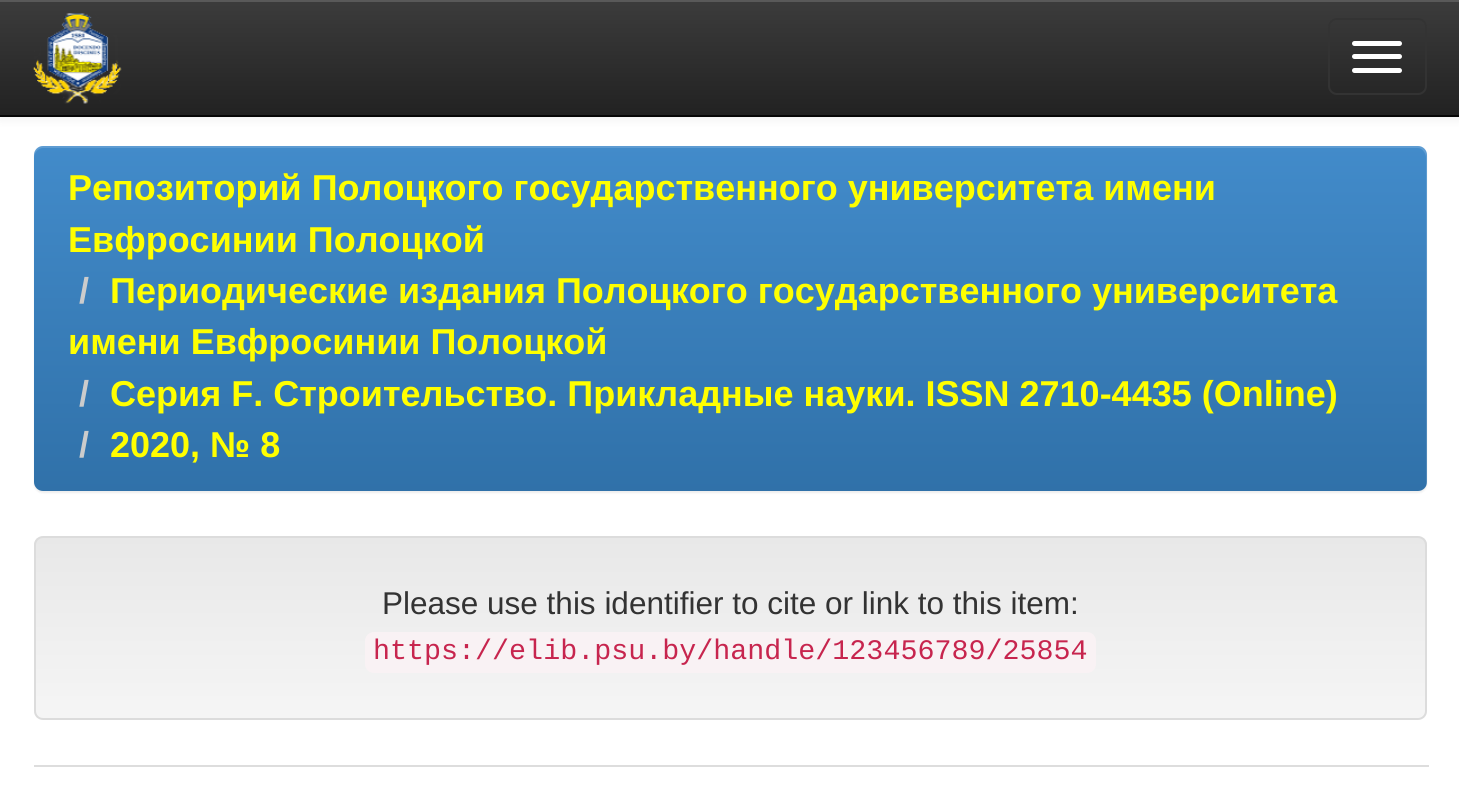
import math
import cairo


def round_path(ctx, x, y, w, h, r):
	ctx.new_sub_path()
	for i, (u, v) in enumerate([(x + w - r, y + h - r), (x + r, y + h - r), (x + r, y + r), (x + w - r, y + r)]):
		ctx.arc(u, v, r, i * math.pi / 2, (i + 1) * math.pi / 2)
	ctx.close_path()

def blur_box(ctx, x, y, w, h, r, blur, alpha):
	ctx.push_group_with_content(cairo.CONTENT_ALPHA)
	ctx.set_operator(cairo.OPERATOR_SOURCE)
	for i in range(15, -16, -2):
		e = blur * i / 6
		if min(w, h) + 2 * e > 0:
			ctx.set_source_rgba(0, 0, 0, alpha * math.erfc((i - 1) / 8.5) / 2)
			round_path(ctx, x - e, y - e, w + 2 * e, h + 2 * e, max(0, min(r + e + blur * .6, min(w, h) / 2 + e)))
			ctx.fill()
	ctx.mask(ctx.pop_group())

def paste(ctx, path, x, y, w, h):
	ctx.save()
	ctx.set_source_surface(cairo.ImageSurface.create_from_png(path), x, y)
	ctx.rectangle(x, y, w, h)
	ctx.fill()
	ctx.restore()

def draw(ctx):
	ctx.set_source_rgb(1, 1, 1)
	ctx.paint()
	ctx.set_source_rgb(0, 0, 0)
	blur_box(ctx, 0, 2, 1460, 117, 0, 5.5, 0.07)
	gradient = cairo.LinearGradient(730, 0, 730, 115)
	gradient.add_color_stop_rgba(0, 0.235, 0.235, 0.235, 1)
	gradient.add_color_stop_rgba(1, 0.133, 0.133, 0.133, 1)
	ctx.set_source(gradient)
	ctx.rectangle(0, 2, 1459, 113)
	ctx.fill()
	ctx.set_source_rgb(0.349, 0.349, 0.349)
	ctx.rectangle(0, 0, 1459, 2)
	ctx.fill()
	ctx.set_source_rgb(0.031, 0.031, 0.031)
	ctx.rectangle(0, 115, 1459, 2)
	ctx.fill()
	paste(ctx, 'media/1.png', 33, 13, 89, 91)
	round_path(ctx, 1329, 19, 97, 75, 8)
	ctx.set_source_rgb(0.2, 0.2, 0.2)
	ctx.stroke()
	ctx.set_source_rgb(1, 1, 1)
	round_path(ctx, 1352, 41, 50, 5, 2.5)
	ctx.fill()
	round_path(ctx, 1352, 54, 50, 5, 2.5)
	ctx.fill()
	round_path(ctx, 1352, 68, 50, 5, 2.5)
	ctx.fill()
	ctx.set_source_rgb(0, 0, 0)
	blur_box(ctx, 34, 149, 1393, 344, 9, 1, 0.07)
	gradient = cairo.LinearGradient(730, 146, 730, 491)
	gradient.add_color_stop_rgba(0, 0.259, 0.545, 0.792, 1)
	gradient.add_color_stop_rgba(1, 0.188, 0.443, 0.663, 1)
	ctx.set_source(gradient)
	round_path(ctx, 34, 146, 1393, 345, 9)
	ctx.fill()
	ctx.set_source_rgba(1, 1, 1, 0.15)
	ctx.new_path()
	ctx.move_to(43, 148)
	ctx.line_to(1418, 148)
	ctx.curve_to(1422, 148, 1426, 153, 1426, 158)
	ctx.line_to(1426, 484)
	ctx.line_to(1426, 487)
	ctx.curve_to(1426, 486, 1427, 484, 1427, 482)
	ctx.line_to(1427, 155)
	ctx.curve_to(1427, 150, 1423, 146, 1418, 146)
	ctx.line_to(43, 146)
	ctx.curve_to(38, 146, 34, 150, 34, 155)
	ctx.line_to(34, 158)
	ctx.curve_to(34, 153, 38, 148, 43, 148)
	ctx.close_path()
	ctx.fill()
	ctx.select_font_face('Liberation Sans', cairo.FONT_SLANT_NORMAL, cairo.FONT_WEIGHT_BOLD)
	ctx.set_font_size(36)
	ctx.set_source_rgb(1, 1, 0)
	ctx.move_to(68, 200)
	ctx.show_text('Репозиторий Полоцкого государственного университета имени')
	ctx.move_to(68, 252)
	ctx.show_text('Евфросинии Полоцкой')
	ctx.set_source_rgb(0.8, 0.8, 0.8)
	ctx.move_to(79, 303)
	ctx.show_text('/')
	ctx.set_source_rgb(1, 1, 0)
	ctx.move_to(110, 303)
	ctx.show_text('Периодические издания Полоцкого государственного университета')
	ctx.move_to(68, 354)
	ctx.show_text('имени Евфросинии Полоцкой')
	ctx.set_source_rgb(0.8, 0.8, 0.8)
	ctx.move_to(79, 406)
	ctx.show_text('/')
	ctx.set_source_rgb(1, 1, 0)
	ctx.move_to(110, 406)
	ctx.show_text('Серия F. Строительство. Прикладные науки. ISSN 2710-4435 (Online)')
	ctx.set_source_rgb(0.8, 0.8, 0.8)
	ctx.move_to(79, 457)
	ctx.show_text('/')
	ctx.set_source_rgb(1, 1, 0)
	ctx.move_to(110, 457)
	ctx.show_text('2020, № 8')
	ctx.save()
	round_path(ctx, 34, 536, 1393, 184, 9)
	ctx.clip()
	gradient = cairo.LinearGradient(730, 538, 730, 718)
	gradient.add_color_stop_rgba(0, 0.91, 0.91, 0.91, 1)
	gradient.add_color_stop_rgba(1, 0.961, 0.961, 0.961, 1)
	ctx.set_source(gradient)
	ctx.rectangle(34, 538, 1393, 180)
	ctx.fill()
	ctx.restore()
	round_path(ctx, 35, 537, 1391, 182, 8)
	ctx.set_source_rgb(0.863, 0.863, 0.863)
	ctx.stroke()
	ctx.select_font_face('Liberation Sans')
	ctx.set_font_size(31.5)
	ctx.set_source_rgb(0.2, 0.2, 0.2)
	ctx.move_to(382, 614)
	ctx.show_text('Please use this identifier to cite or link to this item:')
	ctx.set_source_rgb(0.976, 0.949, 0.957)
	round_path(ctx, 365, 632, 731, 41, 9)
	ctx.fill()
	ctx.select_font_face('Liberation Mono')
	ctx.set_font_size(28.35)
	ctx.set_source_rgb(0.78, 0.145, 0.306)
	ctx.move_to(373, 659)
	ctx.show_text('https://elib.psu.by/handle/123456789/25854')
	ctx.set_source_rgb(0.867, 0.867, 0.867)
	ctx.rectangle(34, 765, 1395, 2)
	ctx.fill()


surface = cairo.ImageSurface(cairo.FORMAT_RGB24, 1459, 809)
ctx = cairo.Context(surface)
options = cairo.FontOptions()
options.set_hint_metrics(cairo.HINT_METRICS_OFF)
options.set_hint_style(cairo.HINT_STYLE_NONE)
ctx.set_font_options(options)
ctx.set_miter_limit(4)
draw(ctx)
surface.write_to_png('image.png')
